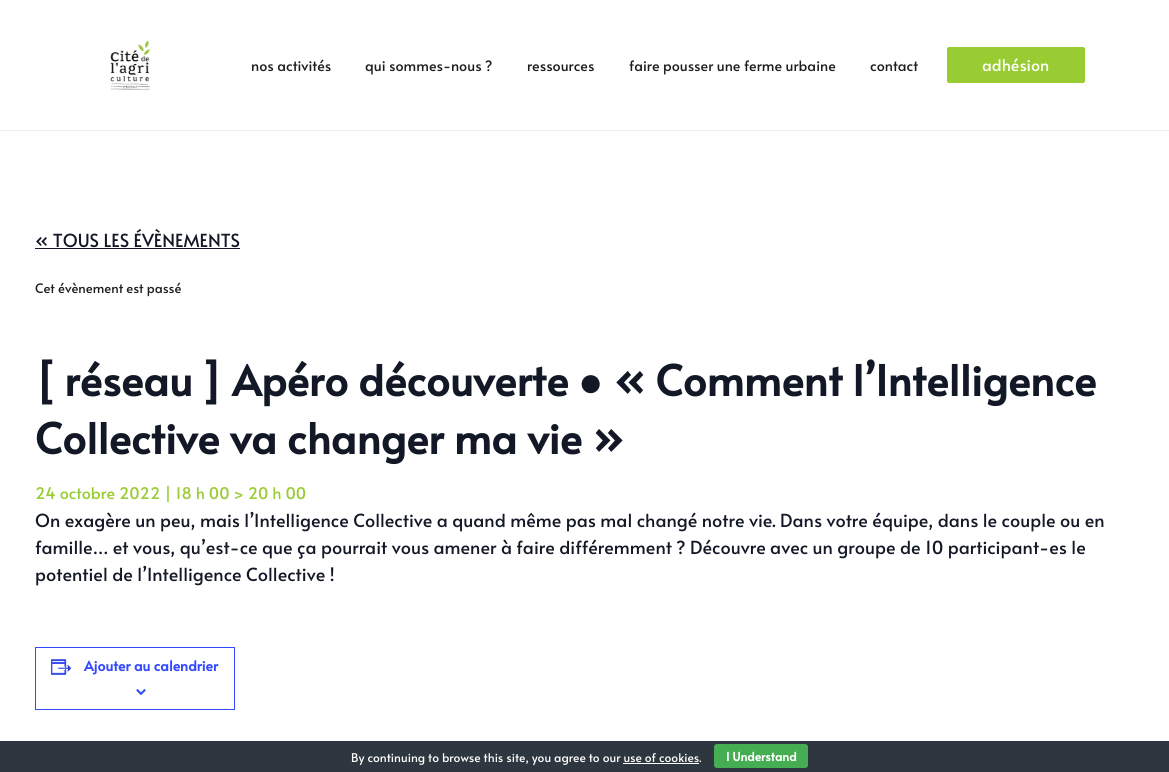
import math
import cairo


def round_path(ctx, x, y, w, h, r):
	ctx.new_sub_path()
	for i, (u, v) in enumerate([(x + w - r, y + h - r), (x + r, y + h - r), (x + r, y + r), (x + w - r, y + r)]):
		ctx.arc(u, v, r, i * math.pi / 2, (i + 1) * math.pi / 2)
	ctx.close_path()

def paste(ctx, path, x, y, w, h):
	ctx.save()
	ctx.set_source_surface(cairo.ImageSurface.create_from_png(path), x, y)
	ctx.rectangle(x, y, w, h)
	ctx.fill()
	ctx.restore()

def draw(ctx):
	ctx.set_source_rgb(1, 1, 1)
	ctx.paint()
	ctx.set_source_rgb(0.922, 0.922, 0.922)
	ctx.rectangle(0, 130, 1169, 1)
	ctx.fill()
	paste(ctx, 'media/1.png', 110, 40, 41, 50)
	ctx.select_font_face('Alata')
	ctx.set_font_size(14.25)
	ctx.set_source_rgb(0.114, 0.114, 0.114)
	for x, y, s in [
		(251, 71, 'nos activités'),
		(365, 71, 'qui sommes-nous ?'),
		(527, 71, 'ressources'),
		(629, 71, 'faire pousser une ferme urbaine'),
		(870, 71, 'contact'),
	]:
		ctx.move_to(x, y)
		ctx.show_text(s)
	ctx.set_source_rgb(0.6, 0.8, 0.2)
	round_path(ctx, 947, 47, 138, 36, 2.5)
	ctx.fill()
	round_path(ctx, 948, 48, 136, 34, 1.5)
	ctx.stroke()
	ctx.set_font_size(16)
	ctx.set_source_rgb(1, 1, 1)
	ctx.move_to(982, 71)
	ctx.show_text('adhésion')
	ctx.set_font_size(18)
	ctx.set_source_rgb(0.078, 0.094, 0.153)
	ctx.move_to(35, 247)
	ctx.show_text('« TOUS LES ÉVÈNEMENTS')
	ctx.rectangle(35, 248, 205, 1)
	ctx.fill()
	ctx.set_font_size(13)
	ctx.set_source_rgb(0.114, 0.114, 0.114)
	ctx.move_to(35, 293)
	ctx.show_text('Cet évènement est passé')
	ctx.select_font_face('Alata', cairo.FONT_SLANT_NORMAL, cairo.FONT_WEIGHT_BOLD)
	ctx.set_font_size(42)
	ctx.set_source_rgb(0.078, 0.094, 0.153)
	ctx.move_to(35, 396)
	ctx.show_text('[ réseau ] Apéro découverte')
	ctx.select_font_face('Liberation Sans', cairo.FONT_SLANT_NORMAL, cairo.FONT_WEIGHT_BOLD)
	ctx.move_to(578, 396)
	ctx.show_text('●')
	ctx.select_font_face('Alata', cairo.FONT_SLANT_NORMAL, cairo.FONT_WEIGHT_BOLD)
	ctx.move_to(614, 396)
	ctx.show_text('« Comment l’Intelligence')
	ctx.move_to(35, 454)
	ctx.show_text('Collective va changer ma vie »')
	ctx.select_font_face('Alata')
	ctx.set_font_size(16)
	ctx.set_source_rgb(0.6, 0.8, 0.2)
	ctx.move_to(35, 499)
	ctx.show_text('24 octobre 2022 | 18 h 00 > 20 h 00')
	ctx.set_font_size(18)
	ctx.set_source_rgb(0.078, 0.094, 0.153)
	for x, y, s in [
		(35, 527, 'On exagère un peu, mais l’Intelligence Collective a quand même pas mal changé notre vie. Dans votre équipe, dans le couple ou en'),
		(35, 554, 'famille… et vous, qu’est-ce que ça pourrait vous amener à faire différemment ? Découvre avec un groupe de 10 participant-es le'),
		(35, 581, 'potentiel de l’Intelligence Collective !'),
	]:
		ctx.move_to(x, y)
		ctx.show_text(s)
	ctx.rectangle(35.5, 647.5, 199, 62)
	ctx.set_source_rgb(0.2, 0.29, 1)
	ctx.set_line_width(1)
	ctx.stroke()
	paste(ctx, 'media/2.png', 51, 659, 21, 16)
	ctx.select_font_face('Alata', cairo.FONT_SLANT_NORMAL, cairo.FONT_WEIGHT_BOLD)
	ctx.set_font_size(14)
	ctx.move_to(84, 671)
	ctx.show_text('Ajouter au calendrier')
	paste(ctx, 'media/3.png', 136, 689, 10, 6)
	ctx.set_source_rgb(0.18, 0.212, 0.247)
	ctx.rectangle(0, 741, 1169, 31)
	ctx.fill()
	ctx.select_font_face('Alata')
	ctx.set_font_size(12)
	ctx.set_source_rgb(1, 1, 1)
	ctx.move_to(351, 762)
	ctx.show_text('By continuing to browse this site, you agree to our use of cookies.')
	ctx.set_source_rgb(0.271, 0.682, 0.322)
	round_path(ctx, 714, 744, 94, 24, 3)
	ctx.fill()
	ctx.select_font_face('Alata', cairo.FONT_SLANT_NORMAL, cairo.FONT_WEIGHT_BOLD)
	ctx.set_source_rgb(1, 1, 1)
	ctx.move_to(726, 761)
	ctx.show_text('I Understand')
	ctx.rectangle(623, 763, 76, 1)
	ctx.fill()


surface = cairo.ImageSurface(cairo.FORMAT_RGB24, 1169, 772)
ctx = cairo.Context(surface)
options = cairo.FontOptions()
options.set_hint_metrics(cairo.HINT_METRICS_OFF)
options.set_hint_style(cairo.HINT_STYLE_NONE)
ctx.set_font_options(options)
ctx.set_miter_limit(4)
draw(ctx)
surface.write_to_png('image.png')
